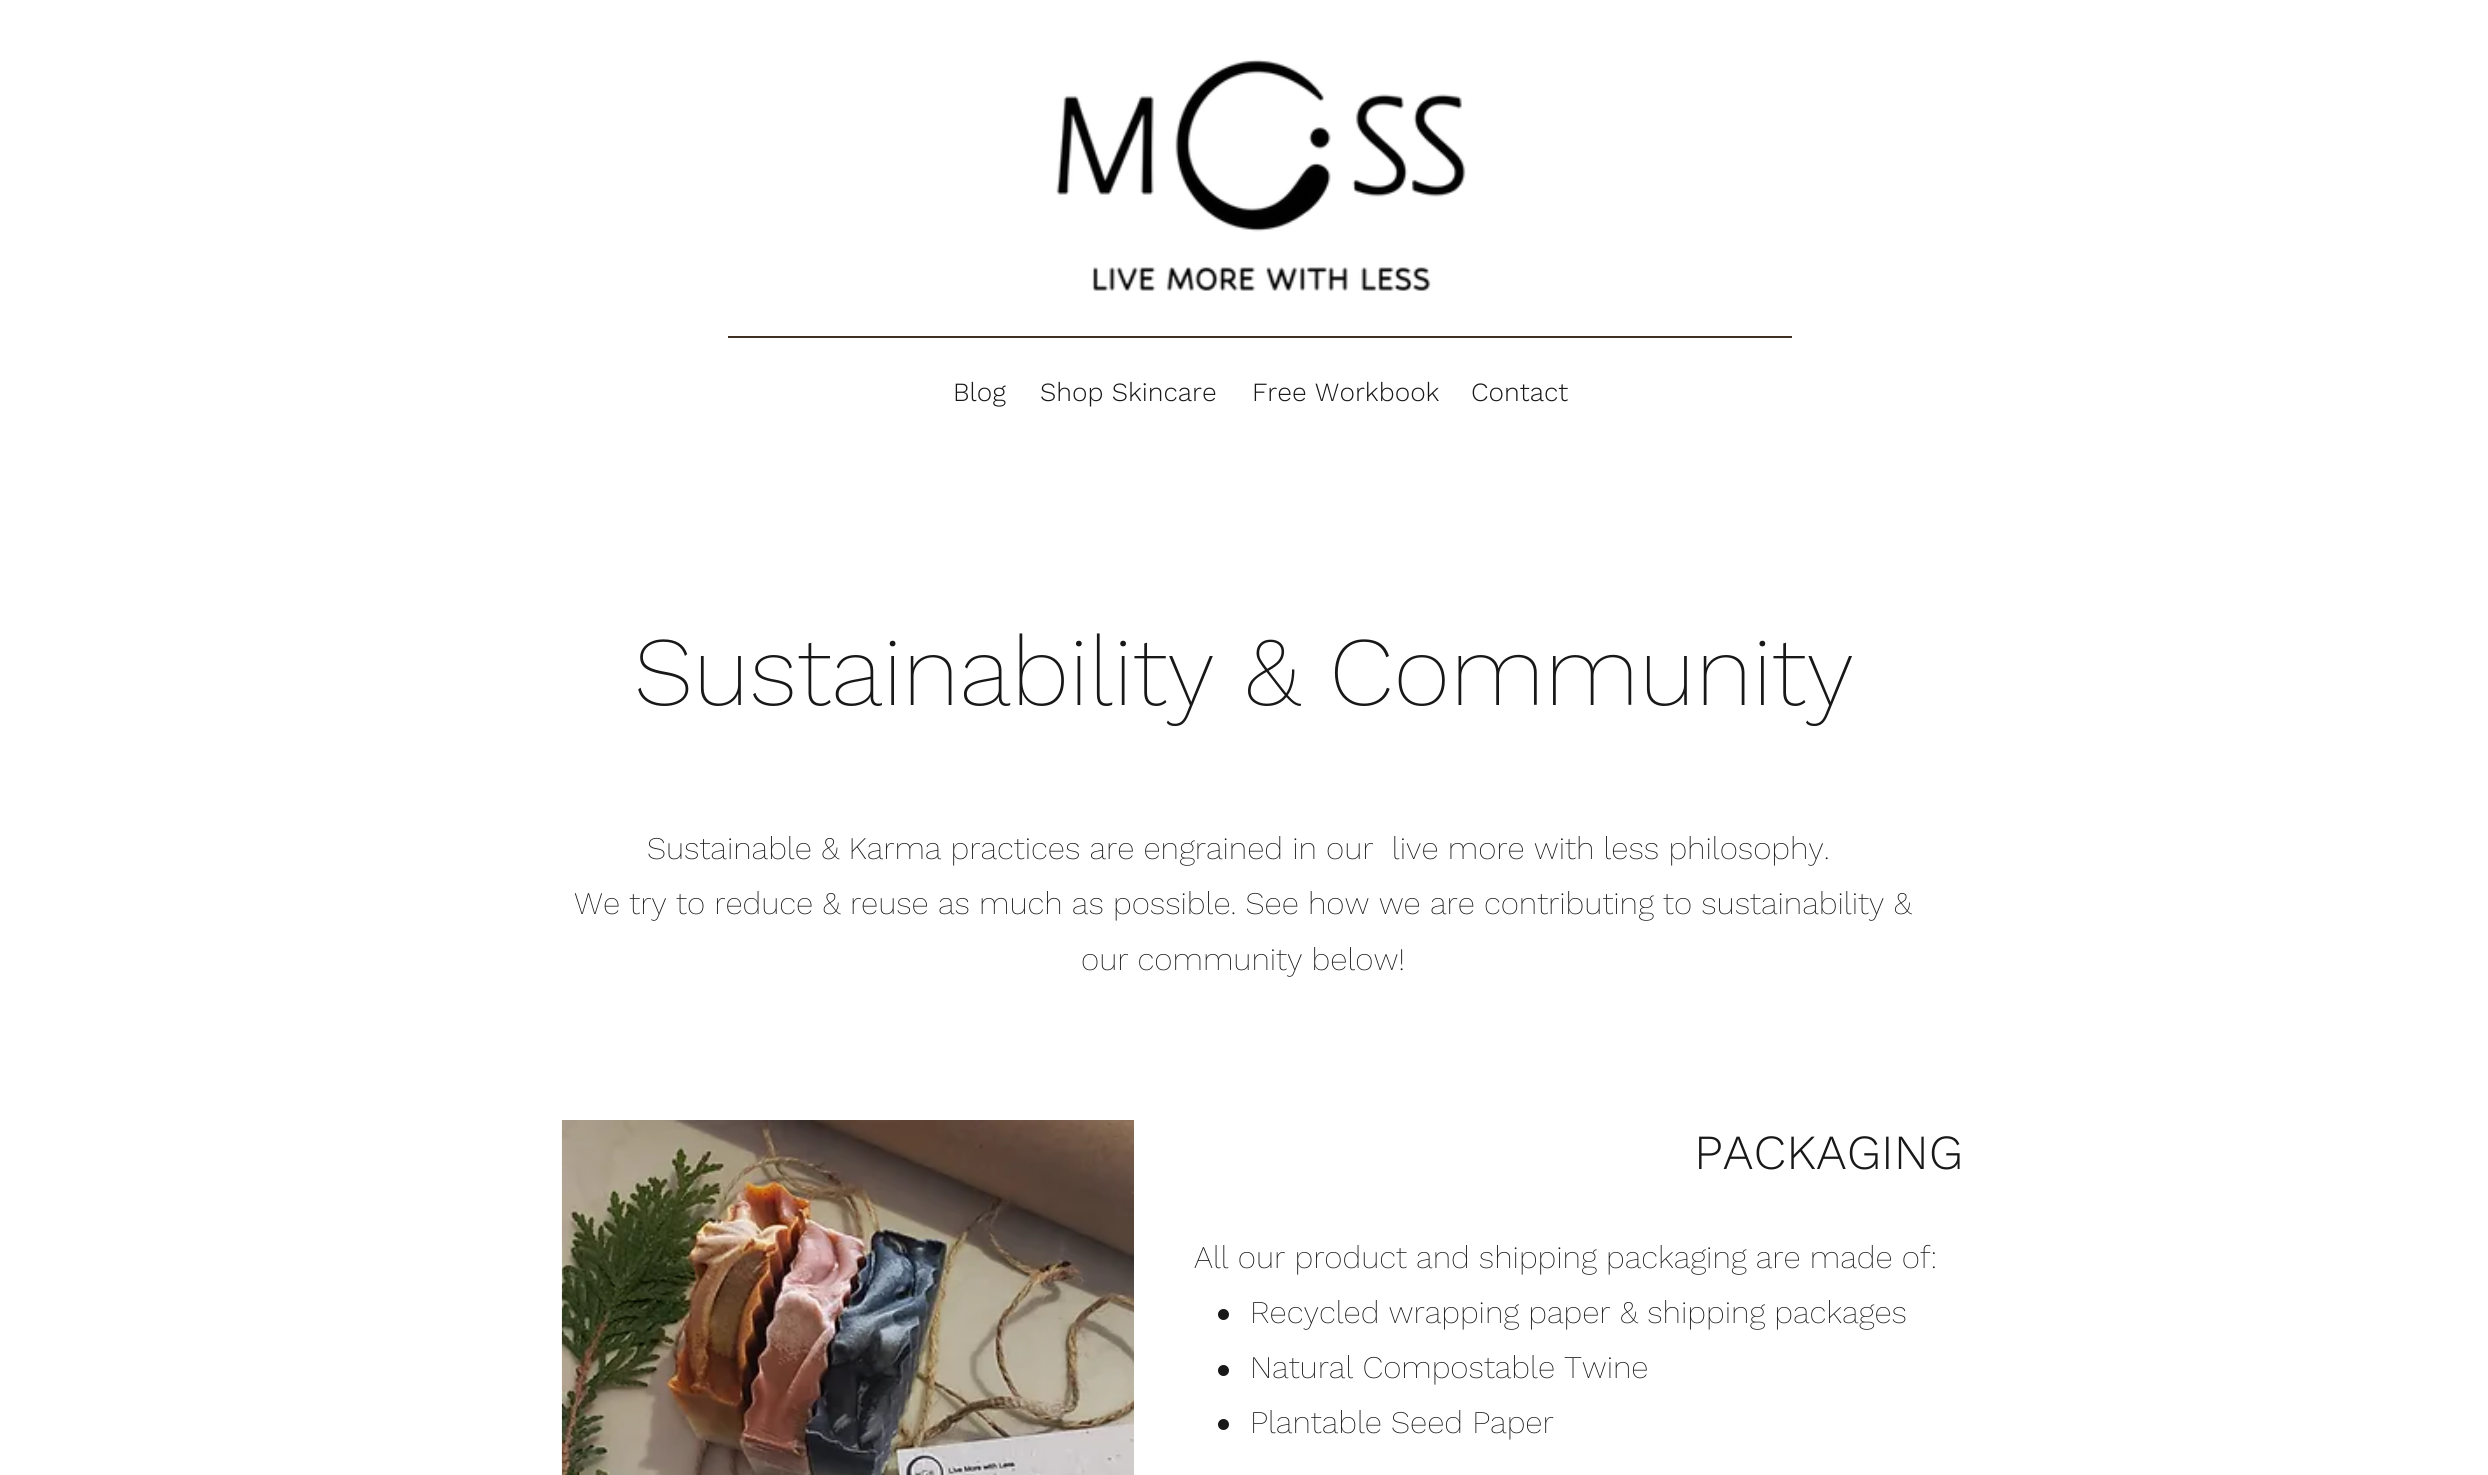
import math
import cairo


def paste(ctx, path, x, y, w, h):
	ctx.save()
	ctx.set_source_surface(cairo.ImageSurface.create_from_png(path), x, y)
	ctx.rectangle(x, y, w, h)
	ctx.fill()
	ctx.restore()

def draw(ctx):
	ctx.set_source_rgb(1, 1, 1)
	ctx.paint()
	paste(ctx, 'media/1.png', 1056, 59, 410, 232)
	ctx.set_source_rgb(0.259, 0.184, 0.141)
	ctx.rectangle(728, 336, 1064, 2)
	ctx.fill()
	ctx.select_font_face('Work Sans Light')
	ctx.set_font_size(26.25)
	ctx.set_source_rgb(0.094, 0.094, 0.094)
	for x, y, s in [
		(953, 401, 'Blog'),
		(1040, 401, 'Shop Skincare'),
		(1252, 401, 'Free Workbook'),
		(1471, 401, 'Contact'),
	]:
		ctx.move_to(x, y)
		ctx.show_text(s)
	ctx.select_font_face('Work Sans ExtraLight')
	ctx.set_font_size(98)
	ctx.move_to(634, 705)
	ctx.show_text('Sustainability & Community')
	ctx.set_font_size(31.5)
	for x, y, s in [
		(647, 859, 'Sustainable & Karma practices are engrained in our  live more with less philosophy.'),
		(574, 914, 'We try to reduce & reuse as much as possible. See how we are contributing to sustainability &'),
		(1081, 970, 'our community below!'),
	]:
		ctx.move_to(x, y)
		ctx.show_text(s)
	paste(ctx, 'media/2.png', 561, 1120, 573, 355)
	ctx.select_font_face('Work Sans Light')
	ctx.set_font_size(49)
	ctx.move_to(1694, 1169)
	ctx.show_text('PACKAGING')
	ctx.select_font_face('Work Sans ExtraLight')
	ctx.set_font_size(31.5)
	ctx.move_to(1194, 1268)
	ctx.show_text('All our product and shipping packaging are made of:')
	ctx.new_path()
	ctx.arc(1223.5, 1314.5, 5.5, 0, 2 * math.pi)
	ctx.fill()
	ctx.move_to(1250, 1323)
	ctx.show_text('Recycled wrapping paper & shipping packages')
	ctx.new_path()
	ctx.arc(1223.5, 1370.5, 5.5, 0, 2 * math.pi)
	ctx.fill()
	ctx.move_to(1250, 1378)
	ctx.show_text('Natural Compostable Twine')
	ctx.new_path()
	ctx.arc(1223.5, 1424.5, 5.5, 0, 2 * math.pi)
	ctx.fill()
	ctx.move_to(1250, 1433)
	ctx.show_text('Plantable Seed Paper')


surface = cairo.ImageSurface(cairo.FORMAT_RGB24, 2488, 1475)
ctx = cairo.Context(surface)
options = cairo.FontOptions()
options.set_hint_metrics(cairo.HINT_METRICS_OFF)
options.set_hint_style(cairo.HINT_STYLE_NONE)
ctx.set_font_options(options)
ctx.set_miter_limit(4)
draw(ctx)
surface.write_to_png('image.png')
